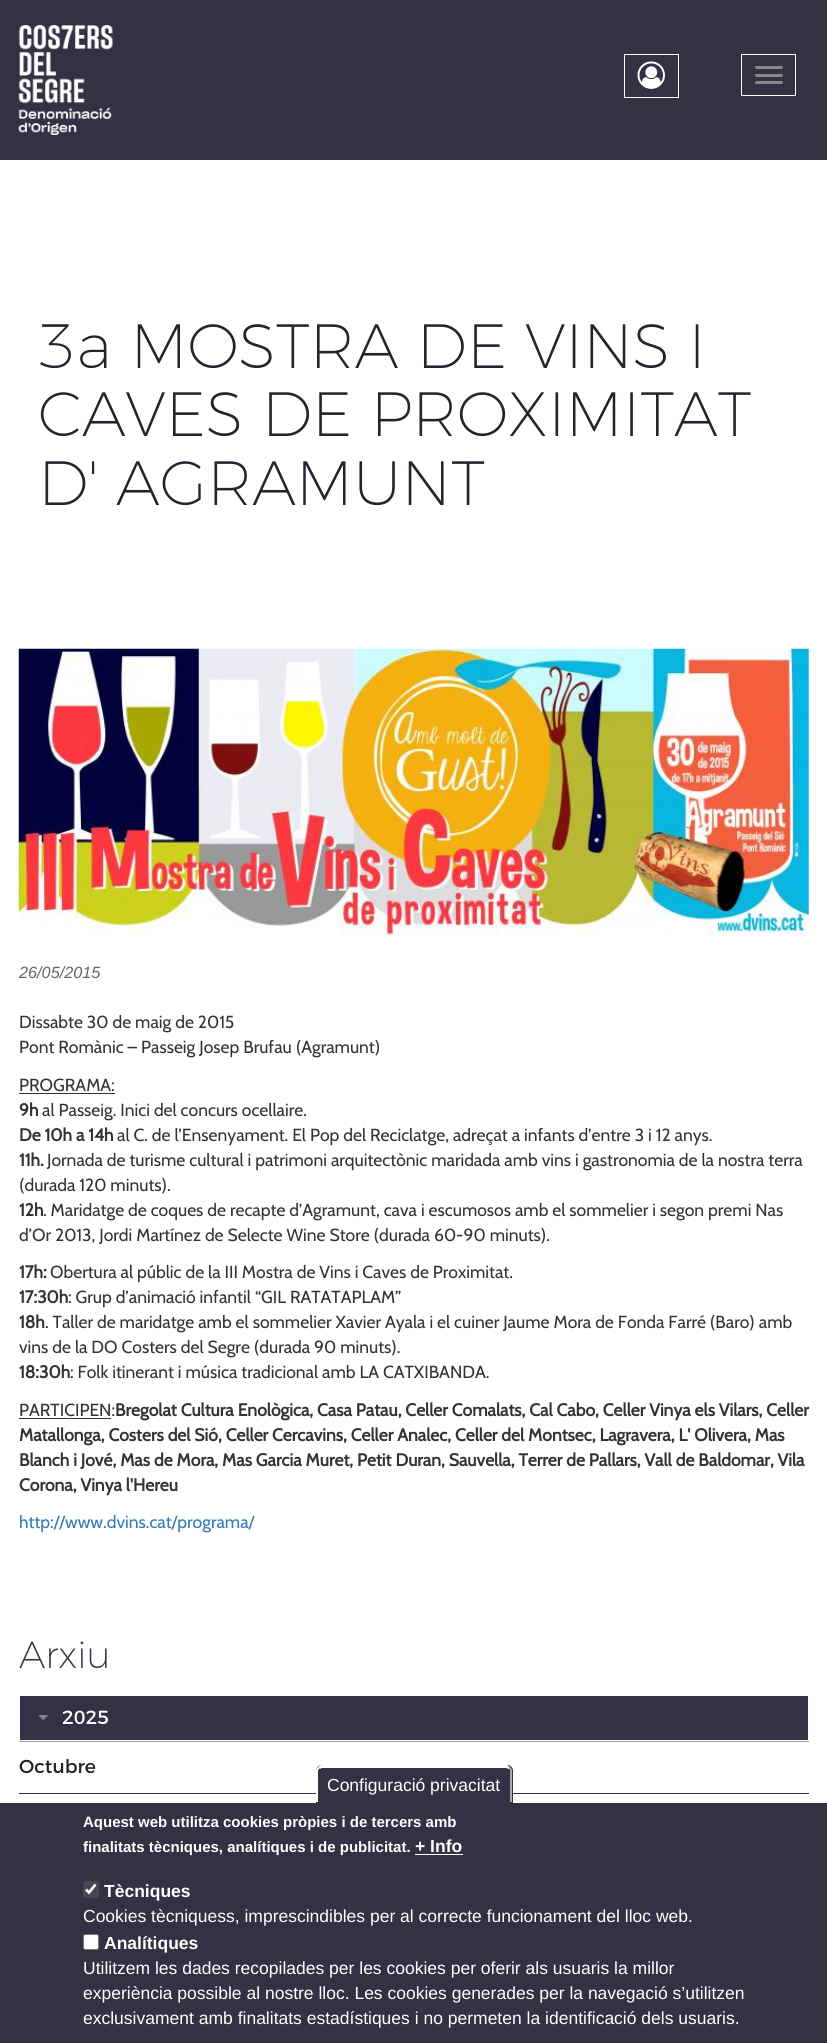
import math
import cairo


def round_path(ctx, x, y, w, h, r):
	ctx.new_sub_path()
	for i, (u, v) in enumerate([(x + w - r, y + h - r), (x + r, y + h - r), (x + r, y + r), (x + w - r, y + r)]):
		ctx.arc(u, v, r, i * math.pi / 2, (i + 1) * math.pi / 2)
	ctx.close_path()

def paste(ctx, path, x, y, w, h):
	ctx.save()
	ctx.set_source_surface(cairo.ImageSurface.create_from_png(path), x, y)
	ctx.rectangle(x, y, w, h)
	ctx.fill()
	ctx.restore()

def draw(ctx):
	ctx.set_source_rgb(1, 1, 1)
	ctx.paint()
	ctx.set_source_rgb(0.2, 0.192, 0.263)
	ctx.rectangle(0, 0, 827, 160)
	ctx.fill()
	paste(ctx, 'media/1.png', 18, 25, 95, 110)
	ctx.rectangle(624.5, 54.5, 54, 43)
	ctx.set_source_rgb(1, 1, 1)
	ctx.set_line_width(1)
	ctx.stroke()
	paste(ctx, 'media/2.png', 637, 61, 28, 28)
	ctx.rectangle(741.5, 54.5, 54, 41)
	ctx.stroke()
	ctx.set_source_rgb(0.533, 0.533, 0.533)
	round_path(ctx, 755, 66, 28, 3, 1.5)
	ctx.fill()
	round_path(ctx, 755, 74, 28, 3, 1.5)
	ctx.fill()
	round_path(ctx, 755, 81, 28, 3, 1.5)
	ctx.fill()
	ctx.select_font_face('Montserrat ExtraLight')
	ctx.set_font_size(62.5)
	ctx.set_source_rgb(0.137, 0.141, 0.18)
	for x, y, s in [
		(38, 368, '3a MOSTRA DE VINS I'),
		(38, 436, 'CAVES DE PROXIMITAT'),
		(38, 505, 'D\' AGRAMUNT'),
	]:
		ctx.move_to(x, y)
		ctx.show_text(s)
	paste(ctx, 'media/3.png', 18, 648, 791, 288)
	ctx.select_font_face('Liberation Sans', cairo.FONT_SLANT_ITALIC)
	ctx.set_font_size(16.25)
	ctx.set_source_rgb(0.4, 0.4, 0.4)
	ctx.move_to(19, 978)
	ctx.show_text('26/05/2015')
	ctx.select_font_face('Cabin')
	ctx.set_font_size(17.5)
	ctx.set_source_rgb(0.2, 0.2, 0.2)
	for x, y, s in [
		(19, 1028, 'Dissabte 30 de maig de 2015'),
		(19, 1053, 'Pont Romànic – Passeig Josep Brufau (Agramunt)'),
		(19, 1091, 'PROGRAMA:'),
	]:
		ctx.move_to(x, y)
		ctx.show_text(s)
	ctx.rectangle(19, 1093, 96, 1)
	ctx.fill()
	ctx.select_font_face('Cabin', cairo.FONT_SLANT_NORMAL, cairo.FONT_WEIGHT_BOLD)
	ctx.move_to(19, 1116)
	ctx.show_text('9h')
	ctx.select_font_face('Cabin')
	ctx.move_to(42, 1116)
	ctx.show_text('al Passeig. Inici del concurs ocellaire.')
	ctx.select_font_face('Cabin', cairo.FONT_SLANT_NORMAL, cairo.FONT_WEIGHT_BOLD)
	ctx.move_to(19, 1141)
	ctx.show_text('De 10h a 14h')
	ctx.select_font_face('Cabin')
	ctx.move_to(117, 1141)
	ctx.show_text('al C. de l’Ensenyament. El Pop del Reciclatge, adreçat a infants d’entre 3 i 12 anys.')
	ctx.select_font_face('Cabin', cairo.FONT_SLANT_NORMAL, cairo.FONT_WEIGHT_BOLD)
	ctx.move_to(19, 1166)
	ctx.show_text('11h.')
	ctx.select_font_face('Cabin')
	ctx.move_to(47, 1166)
	ctx.show_text('Jornada de turisme cultural i patrimoni arquitectònic maridada amb vins i gastronomia de la nostra terra')
	ctx.move_to(19, 1191)
	ctx.show_text('(durada 120 minuts).')
	ctx.select_font_face('Cabin', cairo.FONT_SLANT_NORMAL, cairo.FONT_WEIGHT_BOLD)
	ctx.move_to(19, 1216)
	ctx.show_text('12h')
	ctx.select_font_face('Cabin')
	ctx.move_to(43, 1216)
	ctx.show_text('. Maridatge de coques de recapte d’Agramunt, cava i escumosos amb el sommelier i segon premi Nas')
	ctx.move_to(19, 1241)
	ctx.show_text('d’Or 2013, Jordi Martínez de Selecte Wine Store (durada 60-90 minuts).')
	ctx.select_font_face('Cabin', cairo.FONT_SLANT_NORMAL, cairo.FONT_WEIGHT_BOLD)
	ctx.move_to(19, 1278)
	ctx.show_text('17h:')
	ctx.select_font_face('Cabin')
	ctx.move_to(50, 1278)
	ctx.show_text('Obertura al públic de la III Mostra de Vins i Caves de Proximitat.')
	ctx.select_font_face('Cabin', cairo.FONT_SLANT_NORMAL, cairo.FONT_WEIGHT_BOLD)
	ctx.move_to(19, 1303)
	ctx.show_text('17:30h')
	ctx.select_font_face('Cabin')
	ctx.move_to(68, 1303)
	ctx.show_text(': Grup d’animació infantil “GIL RATATAPLAM”')
	ctx.select_font_face('Cabin', cairo.FONT_SLANT_NORMAL, cairo.FONT_WEIGHT_BOLD)
	ctx.move_to(19, 1328)
	ctx.show_text('18h')
	ctx.select_font_face('Cabin')
	ctx.move_to(45, 1328)
	ctx.show_text('. Taller de maridatge amb el sommelier Xavier Ayala i el cuiner Jaume Mora de Fonda Farré (Baro) amb')
	ctx.move_to(19, 1353)
	ctx.show_text('vins de la DO Costers del Segre (durada 90 minuts).')
	ctx.select_font_face('Cabin', cairo.FONT_SLANT_NORMAL, cairo.FONT_WEIGHT_BOLD)
	ctx.move_to(19, 1378)
	ctx.show_text('18:30h')
	ctx.select_font_face('Cabin')
	ctx.move_to(70, 1378)
	ctx.show_text(': Folk itinerant i música tradicional amb LA CATXIBANDA.')
	ctx.move_to(19, 1416)
	ctx.show_text('PARTICIPEN:')
	ctx.rectangle(19, 1418, 92, 1)
	ctx.fill()
	ctx.select_font_face('Cabin', cairo.FONT_SLANT_NORMAL, cairo.FONT_WEIGHT_BOLD)
	for x, y, s in [
		(115, 1416, 'Bregolat Cultura Enològica, Casa Patau, Celler Comalats, Cal Cabo, Celler Vinya els Vilars, Celler'),
		(19, 1441, 'Matallonga, Costers del Sió, Celler Cercavins, Celler Analec, Celler del Montsec, Lagravera, L\' Olivera, Mas'),
		(19, 1466, 'Blanch i Jové, Mas de Mora, Mas Garcia Muret, Petit Duran, Sauvella, Terrer de Pallars, Vall de Baldomar, Vila'),
		(19, 1491, 'Corona, Vinya l\'Hereu'),
	]:
		ctx.move_to(x, y)
		ctx.show_text(s)
	ctx.select_font_face('Cabin')
	ctx.set_source_rgb(0.2, 0.478, 0.718)
	ctx.move_to(19, 1528)
	ctx.show_text('http://www.dvins.cat/programa/')
	ctx.select_font_face('Montserrat ExtraLight')
	ctx.set_font_size(37.5)
	ctx.set_source_rgb(0.2, 0.192, 0.263)
	ctx.move_to(19, 1668)
	ctx.show_text('Arxiu')
	ctx.rectangle(20, 1696, 788, 44)
	ctx.fill()
	paste(ctx, 'media/4.png', 38, 1714, 10, 7)
	ctx.select_font_face('Montserrat')
	ctx.set_font_size(19)
	ctx.set_source_rgb(1, 1, 1)
	ctx.move_to(62, 1724)
	ctx.show_text('2025')
	ctx.set_source_rgb(0.627, 0.651, 0.671)
	ctx.rectangle(19, 1741, 790, 1)
	ctx.fill()
	ctx.set_source_rgb(0.2, 0.192, 0.263)
	ctx.rectangle(19, 1793, 790, 1)
	ctx.fill()
	ctx.set_font_size(18.75)
	ctx.set_source_rgb(0.129, 0.129, 0.129)
	ctx.move_to(19, 1773)
	ctx.show_text('Octubre')
	ctx.set_source_rgb(0.2, 0.192, 0.263)
	ctx.rectangle(0, 1803, 827, 240)
	ctx.fill()
	ctx.new_path()
	ctx.move_to(322, 1765)
	ctx.line_to(507, 1765)
	ctx.curve_to(510.5, 1765, 513, 1767.5, 513, 1771)
	ctx.line_to(513, 1803)
	ctx.line_to(316, 1803)
	ctx.line_to(316, 1771)
	ctx.curve_to(316, 1767.5, 318.5, 1765, 322, 1765)
	ctx.close_path()
	ctx.fill()
	ctx.set_source_rgb(1, 1, 1)
	ctx.new_path()
	ctx.move_to(322, 1765)
	ctx.line_to(507, 1765)
	ctx.line_to(510, 1767)
	ctx.line_to(509, 1769)
	ctx.line_to(506, 1768)
	ctx.line_to(322, 1768)
	ctx.line_to(320, 1769)
	ctx.line_to(318, 1767)
	ctx.curve_to(319, 1766, 320, 1765, 322, 1765)
	ctx.close_path()
	ctx.fill()
	ctx.set_source_rgb(0.667, 0.667, 0.667)
	ctx.new_path()
	ctx.move_to(510, 1767)
	ctx.line_to(508.5, 1768.5)
	ctx.curve_to(509.5, 1769, 510, 1770, 510, 1771)
	ctx.line_to(510, 1802)
	ctx.line_to(512, 1802)
	ctx.line_to(512, 1771)
	ctx.curve_to(512, 1769.5, 511.5, 1768, 510, 1767)
	ctx.close_path()
	ctx.fill()
	ctx.set_source_rgb(1, 1, 1)
	ctx.new_path()
	ctx.move_to(318, 1767)
	ctx.line_to(319.5, 1768.5)
	ctx.curve_to(318.5, 1769, 318, 1770, 318, 1771)
	ctx.line_to(318, 1802)
	ctx.line_to(316, 1802)
	ctx.line_to(316, 1771)
	ctx.curve_to(316, 1769.5, 316.5, 1768, 318, 1767)
	ctx.close_path()
	ctx.fill()
	ctx.select_font_face('Liberation Sans')
	ctx.set_font_size(17.5)
	ctx.move_to(327, 1791)
	ctx.show_text('Configuració privacitat')
	ctx.select_font_face('Liberation Sans', cairo.FONT_SLANT_NORMAL, cairo.FONT_WEIGHT_BOLD)
	ctx.set_font_size(15)
	ctx.move_to(83, 1827)
	ctx.show_text('Aquest web utilitza cookies pròpies i de tercers amb')
	ctx.move_to(83, 1852)
	ctx.show_text('finalitats tècniques, analítiques i de publicitat.')
	ctx.set_font_size(17.5)
	ctx.move_to(415, 1852)
	ctx.show_text('+ Info')
	ctx.rectangle(415, 1854, 48, 1)
	ctx.fill()
	ctx.set_source_rgb(0.278, 0.275, 0.322)
	round_path(ctx, 83, 1881, 16, 17, 2.5)
	ctx.fill()
	ctx.new_path()
	ctx.move_to(86, 1889.5)
	ctx.line_to(89, 1892.5)
	ctx.line_to(95.5, 1884.5)
	ctx.set_source_rgb(1, 1, 1)
	ctx.set_line_width(2.6)
	ctx.stroke()
	ctx.move_to(104, 1897)
	ctx.show_text('Tècniques')
	ctx.select_font_face('Liberation Sans')
	ctx.move_to(83, 1922)
	ctx.show_text('Cookies tècniquess, imprescindibles per al correcte funcionament del lloc web.')
	round_path(ctx, 83.5, 1934.5, 15, 15, 2)
	ctx.fill_preserve()
	ctx.set_source_rgb(0.463, 0.463, 0.463)
	ctx.set_line_width(1)
	ctx.stroke()
	ctx.select_font_face('Liberation Sans', cairo.FONT_SLANT_NORMAL, cairo.FONT_WEIGHT_BOLD)
	ctx.set_source_rgb(1, 1, 1)
	ctx.move_to(104, 1949)
	ctx.show_text('Analítiques')
	ctx.select_font_face('Liberation Sans')
	for x, y, s in [
		(83, 1974, 'Utilitzem les dades recopilades per les cookies per oferir als usuaris la millor'),
		(83, 1999, 'experiència possible al nostre lloc. Les cookies generades per la navegació s’utilitzen'),
		(83, 2024, 'exclusivament amb finalitats estadístiques i no permeten la identificació dels usuaris.'),
	]:
		ctx.move_to(x, y)
		ctx.show_text(s)


surface = cairo.ImageSurface(cairo.FORMAT_RGB24, 827, 2043)
ctx = cairo.Context(surface)
options = cairo.FontOptions()
options.set_hint_metrics(cairo.HINT_METRICS_OFF)
options.set_hint_style(cairo.HINT_STYLE_NONE)
ctx.set_font_options(options)
ctx.set_miter_limit(4)
draw(ctx)
surface.write_to_png('image.png')
